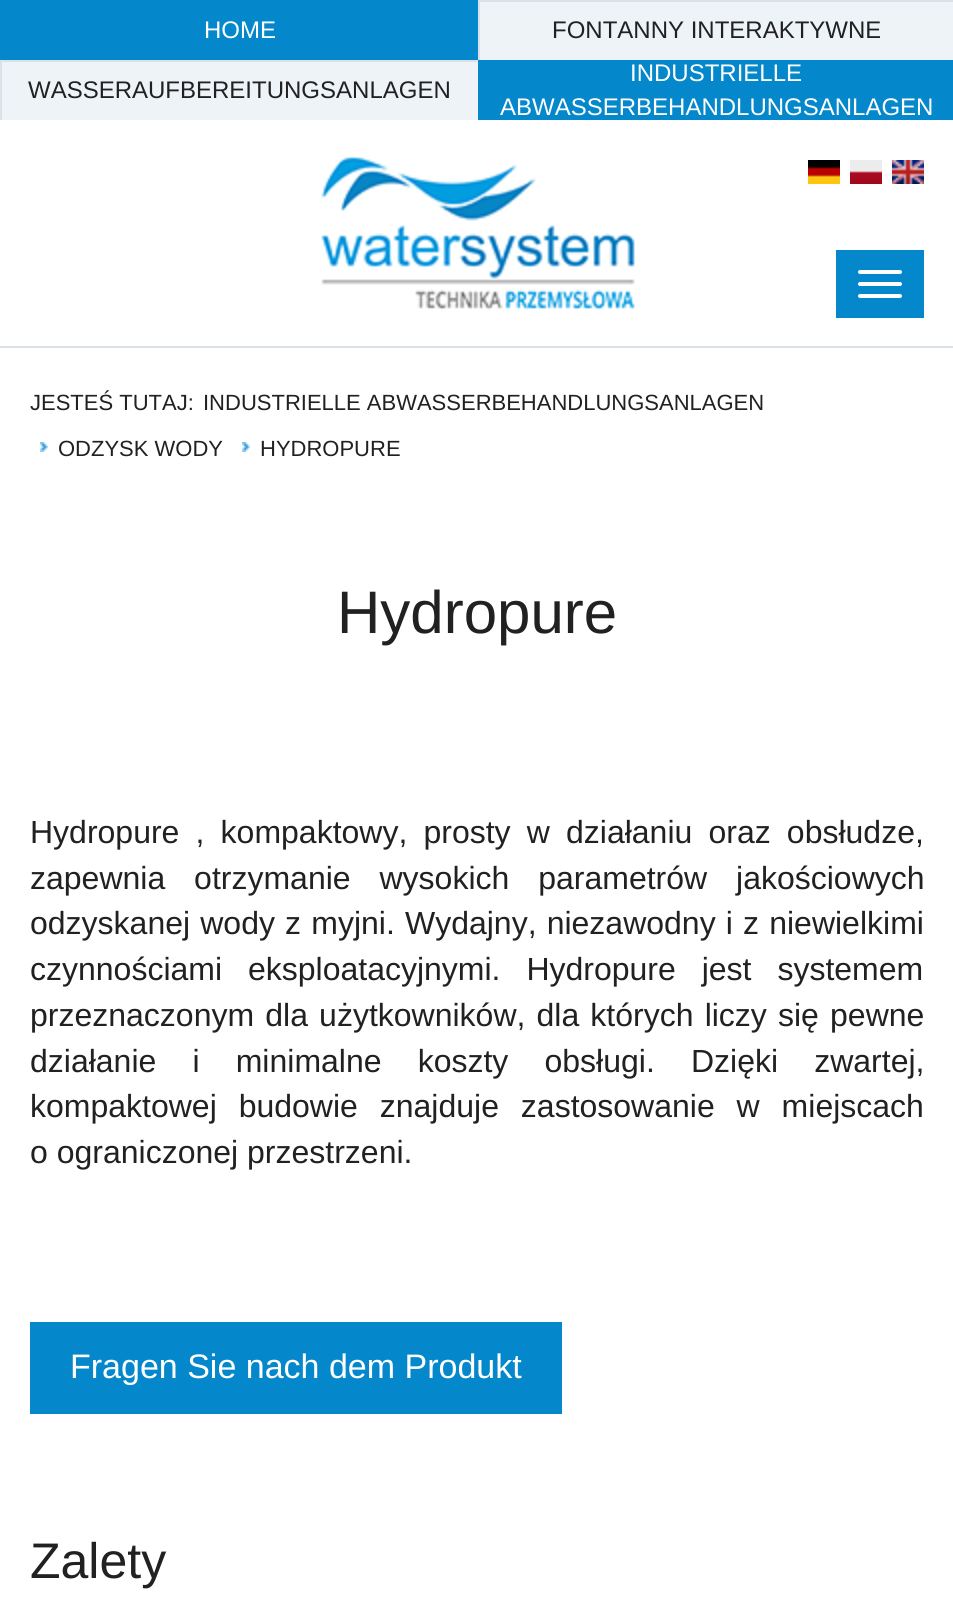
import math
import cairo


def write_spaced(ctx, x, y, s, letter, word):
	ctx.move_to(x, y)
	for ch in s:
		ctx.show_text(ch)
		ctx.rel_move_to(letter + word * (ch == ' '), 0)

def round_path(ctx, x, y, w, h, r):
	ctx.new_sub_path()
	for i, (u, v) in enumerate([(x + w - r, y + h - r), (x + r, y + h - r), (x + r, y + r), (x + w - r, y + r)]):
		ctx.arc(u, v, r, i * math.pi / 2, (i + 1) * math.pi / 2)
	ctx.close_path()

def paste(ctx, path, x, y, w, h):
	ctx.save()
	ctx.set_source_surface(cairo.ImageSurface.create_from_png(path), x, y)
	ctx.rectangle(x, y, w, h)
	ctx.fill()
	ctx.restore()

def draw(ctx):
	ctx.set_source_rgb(1, 1, 1)
	ctx.paint()
	ctx.set_source_rgb(0.02, 0.533, 0.796)
	ctx.rectangle(0, 0, 478, 60)
	ctx.fill()
	ctx.select_font_face('Liberation Sans')
	ctx.set_font_size(24)
	ctx.set_source_rgb(1, 1, 1)
	ctx.move_to(204, 38)
	ctx.show_text('HOME')
	ctx.set_source_rgb(0.933, 0.953, 0.969)
	ctx.rectangle(480, 2, 473, 58)
	ctx.fill()
	ctx.set_source_rgb(0.851, 0.886, 0.914)
	ctx.rectangle(478, 0, 475, 2)
	ctx.rectangle(478, 0, 2, 60)
	ctx.fill()
	ctx.set_source_rgb(0.129, 0.129, 0.129)
	ctx.move_to(552, 38)
	ctx.show_text('FONTANNY INTERAKTYWNE')
	ctx.set_source_rgb(0.933, 0.953, 0.969)
	ctx.rectangle(2, 62, 476, 58)
	ctx.fill()
	ctx.set_source_rgb(0.851, 0.886, 0.914)
	ctx.rectangle(0, 60, 478, 2)
	ctx.rectangle(0, 60, 2, 60)
	ctx.fill()
	ctx.set_source_rgb(0.129, 0.129, 0.129)
	ctx.move_to(28, 98)
	ctx.show_text('WASSERAUFBEREITUNGSANLAGEN')
	ctx.set_source_rgb(0.02, 0.533, 0.796)
	ctx.rectangle(478, 60, 475, 60)
	ctx.fill()
	ctx.set_source_rgb(1, 1, 1)
	ctx.move_to(630, 81)
	ctx.show_text('INDUSTRIELLE')
	ctx.move_to(500, 115)
	ctx.show_text('ABWASSERBEHANDLUNGSANLAGEN')
	ctx.set_source_rgb(0.851, 0.886, 0.914)
	ctx.rectangle(0, 346, 953, 2)
	ctx.fill()
	paste(ctx, 'media/1.png', 321, 156, 314, 155)
	paste(ctx, 'media/2.png', 808, 160, 32, 24)
	paste(ctx, 'media/3.png', 850, 160, 32, 24)
	paste(ctx, 'media/4.png', 892, 160, 32, 24)
	ctx.set_source_rgb(0.02, 0.533, 0.796)
	ctx.rectangle(836, 250, 88, 68)
	ctx.fill()
	ctx.set_source_rgb(1, 1, 1)
	round_path(ctx, 858, 270, 44, 4, 2)
	ctx.fill()
	round_path(ctx, 858, 282, 44, 4, 2)
	ctx.fill()
	round_path(ctx, 858, 294, 44, 4, 2)
	ctx.fill()
	ctx.set_font_size(22)
	ctx.set_source_rgb(0.129, 0.129, 0.129)
	ctx.move_to(30, 410)
	ctx.show_text('JESTEŚ TUTAJ:')
	ctx.move_to(203, 410)
	ctx.show_text('INDUSTRIELLE ABWASSERBEHANDLUNGSANLAGEN')
	paste(ctx, 'media/5.png', 40, 442, 8, 10)
	ctx.move_to(58, 456)
	ctx.show_text('ODZYSK WODY')
	paste(ctx, 'media/5.png', 242, 442, 8, 10)
	ctx.move_to(260, 456)
	ctx.show_text('HYDROPURE')
	ctx.set_font_size(60)
	ctx.move_to(337, 633)
	ctx.show_text('Hydropure')
	ctx.set_font_size(32)
	write_spaced(ctx, 30, 843, 'Hydropure , kompaktowy, prosty w działaniu oraz obsłudze,', 0, 7.25)
	write_spaced(ctx, 30, 889, 'zapewnia otrzymanie wysokich parametrów jakościowych', 0, 20)
	write_spaced(ctx, 30, 934, 'odzyskanej wody z myjni. Wydajny, niezawodny i z niewielkimi', 0, 1.25)
	write_spaced(ctx, 30, 980, 'czynnościami eksploatacyjnymi. Hydropure jest systemem', 0, 17)
	write_spaced(ctx, 30, 1026, 'przeznaczonym dla użytkowników, dla których liczy się pewne', 0, 2.25)
	write_spaced(ctx, 30, 1072, 'działanie i minimalne koszty obsługi. Dzięki zwartej,', 0, 27.25)
	write_spaced(ctx, 30, 1117, 'kompaktowej budowie znajduje zastosowanie w miejscach', 0, 13)
	ctx.move_to(30, 1163)
	ctx.show_text('o ograniczonej przestrzeni.')
	ctx.set_source_rgb(0.02, 0.533, 0.796)
	ctx.rectangle(30, 1322, 532, 92)
	ctx.fill()
	ctx.set_font_size(34)
	ctx.set_source_rgb(1, 1, 1)
	ctx.move_to(70, 1378)
	ctx.show_text('Fragen Sie nach dem Produkt')
	ctx.set_font_size(50)
	ctx.set_source_rgb(0.129, 0.129, 0.129)
	ctx.move_to(30, 1578)
	ctx.show_text('Zalety')


surface = cairo.ImageSurface(cairo.FORMAT_RGB24, 953, 1610)
ctx = cairo.Context(surface)
options = cairo.FontOptions()
options.set_hint_metrics(cairo.HINT_METRICS_OFF)
options.set_hint_style(cairo.HINT_STYLE_NONE)
ctx.set_font_options(options)
ctx.set_miter_limit(4)
draw(ctx)
surface.write_to_png('image.png')
